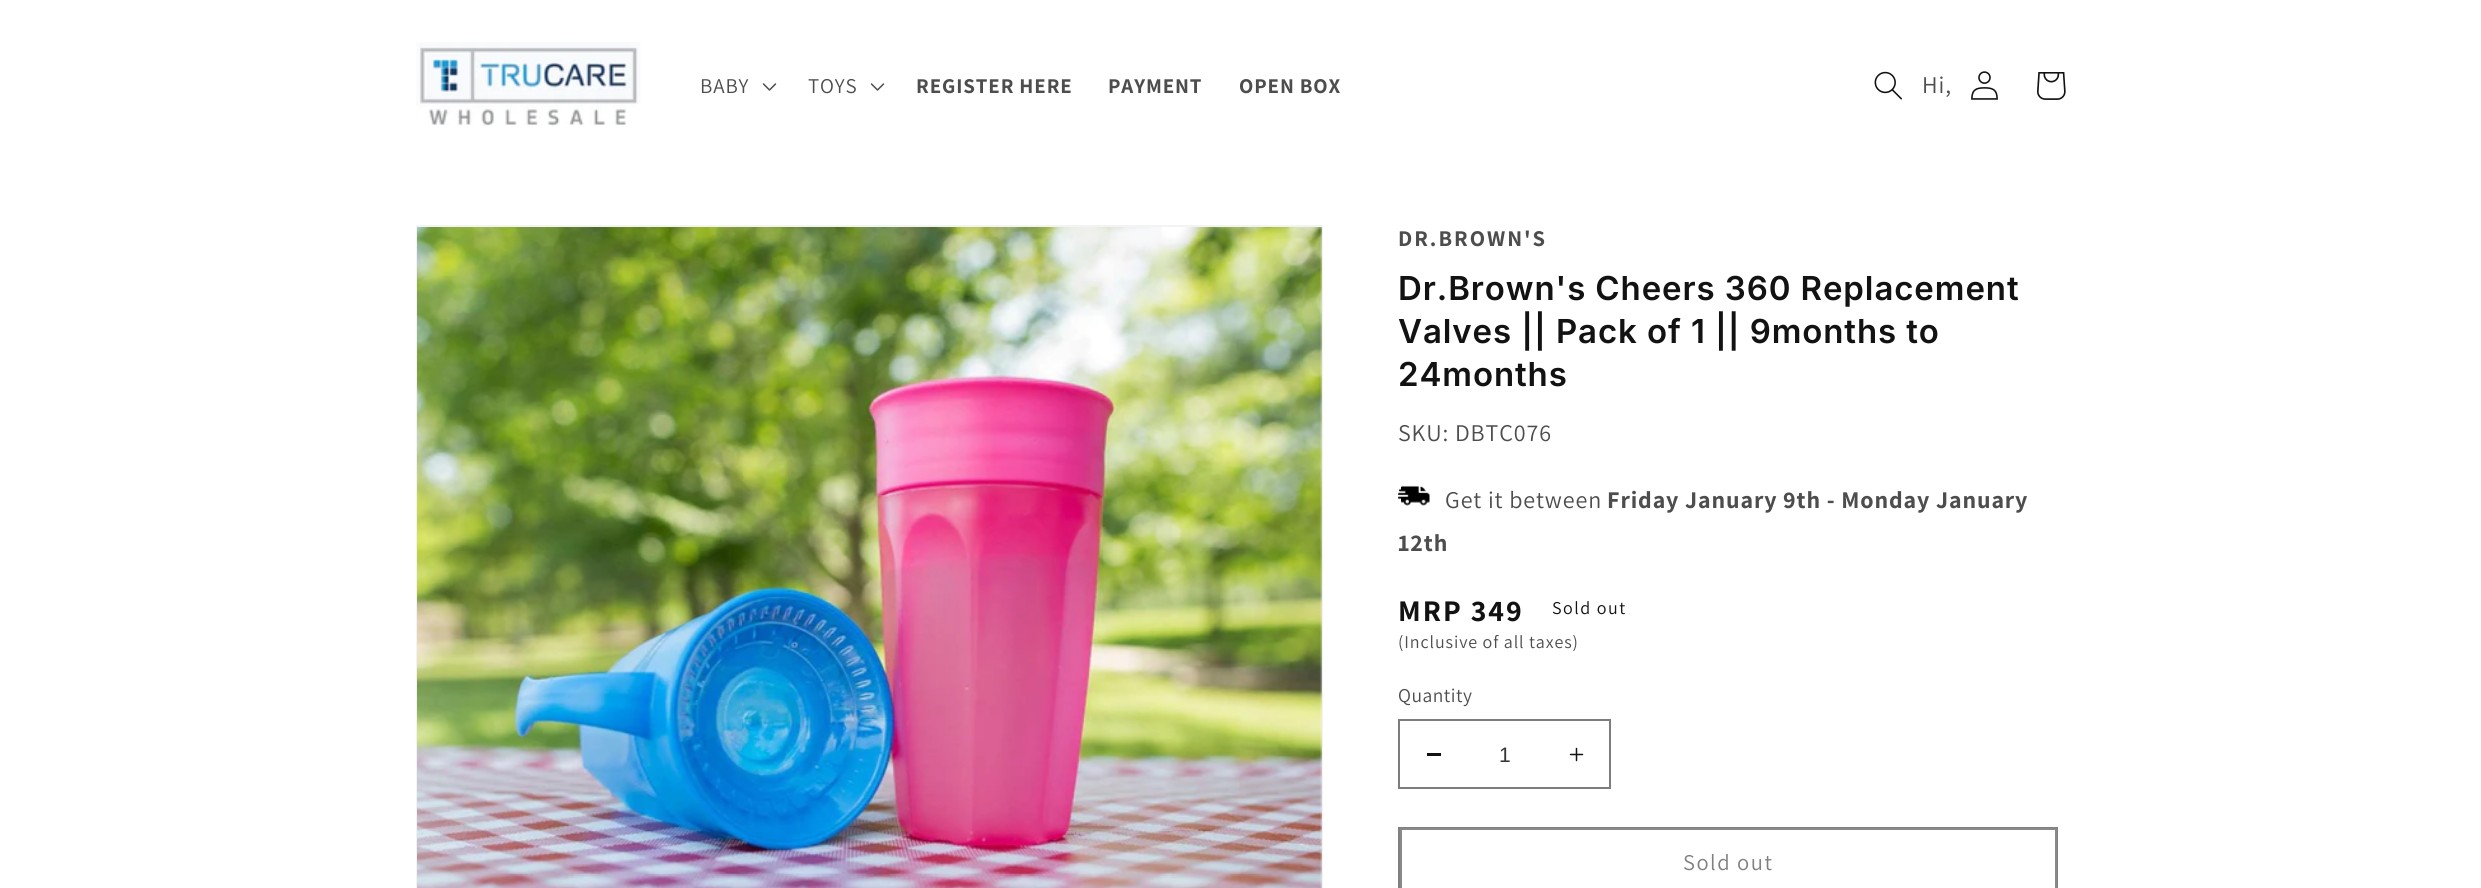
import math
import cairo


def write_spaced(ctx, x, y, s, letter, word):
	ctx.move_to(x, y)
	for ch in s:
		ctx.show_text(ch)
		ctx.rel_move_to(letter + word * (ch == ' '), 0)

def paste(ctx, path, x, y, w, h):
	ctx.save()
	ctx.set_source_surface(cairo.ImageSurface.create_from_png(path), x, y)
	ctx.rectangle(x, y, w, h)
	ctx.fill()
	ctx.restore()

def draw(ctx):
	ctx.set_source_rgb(1, 1, 1)
	ctx.paint()
	paste(ctx, 'media/1.png', 416, 42, 225, 84)
	ctx.select_font_face('Assistant')
	ctx.set_font_size(21)
	ctx.set_source_rgb(0.302, 0.302, 0.302)
	write_spaced(ctx, 700, 93, 'BABY', 0.9, 0)
	paste(ctx, 'media/2.png', 762, 83, 15, 8)
	write_spaced(ctx, 808, 93, 'TOYS', 0.9, 0)
	paste(ctx, 'media/2.png', 870, 83, 15, 8)
	ctx.select_font_face('Assistant', cairo.FONT_SLANT_NORMAL, cairo.FONT_WEIGHT_BOLD)
	for x, y, s in [
		(916, 93, 'REGISTER HERE'),
		(1108, 93, 'PAYMENT'),
		(1239, 93, 'OPEN BOX'),
	]:
		write_spaced(ctx, x, y, s, 0.9, 0)
	paste(ctx, 'media/3.png', 1874, 71, 28, 29)
	ctx.select_font_face('Assistant')
	ctx.set_font_size(24)
	write_spaced(ctx, 1922, 93, 'Hi,', 0.9, 0)
	paste(ctx, 'media/4.png', 1971, 71, 27, 29)
	paste(ctx, 'media/5.png', 2037, 72, 29, 28)
	ctx.rectangle(417, 226, 905, 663)
	ctx.set_source_rgb(0.953, 0.953, 0.953)
	ctx.stroke()
	paste(ctx, 'media/6.png', 417, 227, 905, 661)
	ctx.select_font_face('Assistant', cairo.FONT_SLANT_NORMAL, cairo.FONT_WEIGHT_BOLD)
	ctx.set_font_size(22.5)
	ctx.set_source_rgb(0.302, 0.302, 0.302)
	write_spaced(ctx, 1398, 246, 'DR.BROWN\'S', 2, 0)
	ctx.select_font_face('Inter SemiBold')
	ctx.set_font_size(33)
	ctx.set_source_rgb(0.071, 0.071, 0.071)
	for x, y, s in [
		(1398, 300, 'Dr.Brown\'s Cheers 360 Replacement'),
		(1398, 343, 'Valves || Pack of 1 || 9months to'),
		(1398, 386, '24months'),
	]:
		write_spaced(ctx, x, y, s, 0.9, 0)
	ctx.select_font_face('Assistant')
	ctx.set_font_size(24)
	ctx.set_source_rgb(0.302, 0.302, 0.302)
	write_spaced(ctx, 1398, 441, 'SKU: DBTC076', 0.9, 0)
	paste(ctx, 'media/7.png', 1398, 485, 32, 21)
	write_spaced(ctx, 1445, 508, 'Get it between', 0.9, 0)
	ctx.select_font_face('Assistant', cairo.FONT_SLANT_NORMAL, cairo.FONT_WEIGHT_BOLD)
	write_spaced(ctx, 1607, 508, 'Friday January 9th - Monday January', 0.9, 0)
	write_spaced(ctx, 1398, 551, '12th', 0.9, 0)
	ctx.set_font_size(30)
	ctx.set_source_rgb(0.071, 0.071, 0.071)
	write_spaced(ctx, 1398, 621, 'MRP 349', 2, 0)
	ctx.select_font_face('Assistant')
	ctx.set_font_size(18)
	write_spaced(ctx, 1552, 614, 'Sold out', 1.5, 0)
	ctx.set_source_rgb(0.302, 0.302, 0.302)
	write_spaced(ctx, 1398, 648, '(Inclusive of all taxes)', 0.9, 0)
	ctx.set_font_size(19.5)
	write_spaced(ctx, 1398, 702, 'Quantity', 0.5, 0)
	ctx.set_source_rgb(0.071, 0.071, 0.071)
	ctx.rectangle(1427, 753, 14, 3)
	ctx.fill()
	paste(ctx, 'media/8.png', 1569, 747, 15, 15)
	ctx.rectangle(1399, 720, 211, 68)
	ctx.set_source_rgb(0.49, 0.49, 0.49)
	ctx.stroke()
	ctx.select_font_face('Liberation Sans')
	ctx.set_font_size(21)
	ctx.set_source_rgb(0.212, 0.212, 0.212)
	ctx.move_to(1499, 762)
	ctx.show_text('1')
	ctx.rectangle(1399, 828, 658, 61)
	ctx.set_source_rgb(0.502, 0.502, 0.502)
	ctx.stroke()
	ctx.rectangle(1401, 829, 655, 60)
	ctx.set_source_rgb(0.537, 0.537, 0.537)
	ctx.stroke()
	ctx.select_font_face('Assistant')
	ctx.set_font_size(22.5)
	ctx.set_source_rgb(0.502, 0.502, 0.502)
	write_spaced(ctx, 1683, 870, 'Sold out', 1.5, 0)


surface = cairo.ImageSurface(cairo.FORMAT_RGB24, 2481, 888)
ctx = cairo.Context(surface)
options = cairo.FontOptions()
options.set_hint_metrics(cairo.HINT_METRICS_OFF)
options.set_hint_style(cairo.HINT_STYLE_NONE)
ctx.set_font_options(options)
ctx.set_miter_limit(4)
draw(ctx)
surface.write_to_png('image.png')
